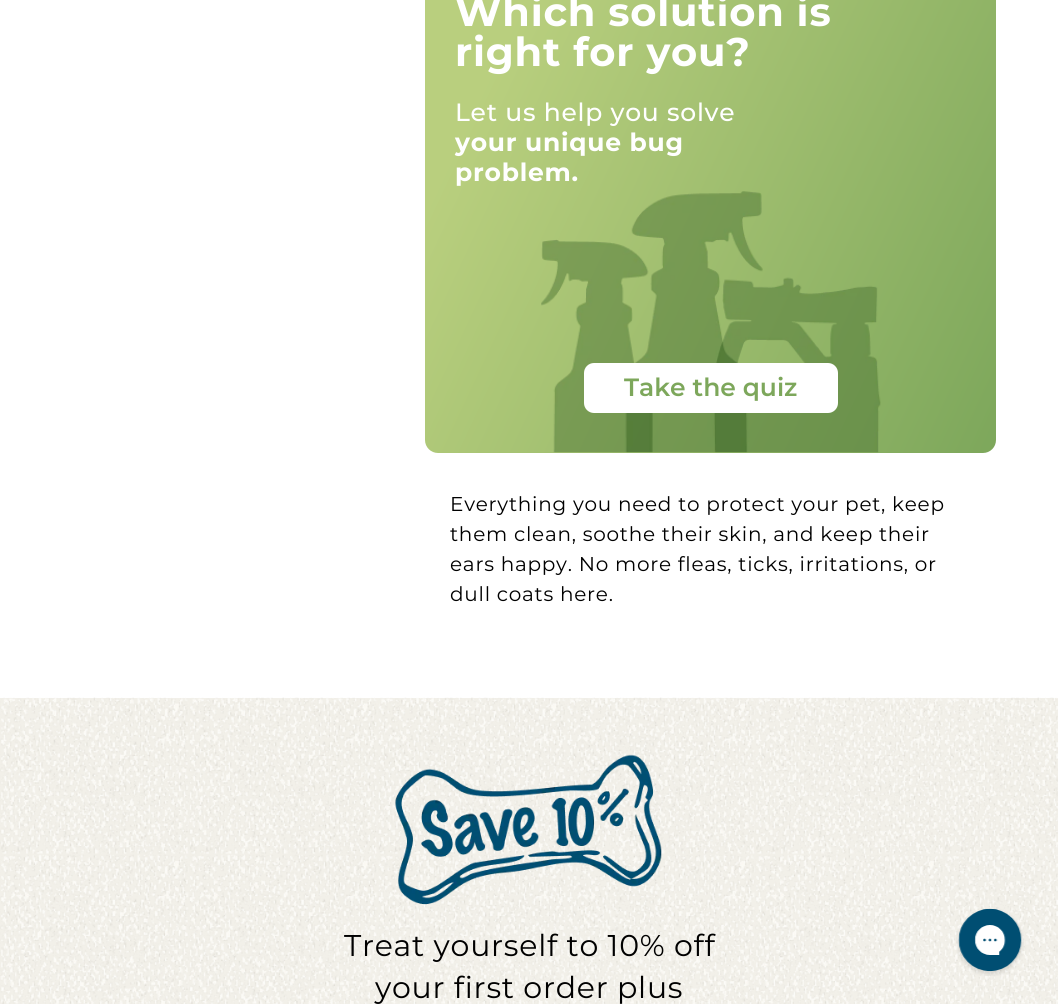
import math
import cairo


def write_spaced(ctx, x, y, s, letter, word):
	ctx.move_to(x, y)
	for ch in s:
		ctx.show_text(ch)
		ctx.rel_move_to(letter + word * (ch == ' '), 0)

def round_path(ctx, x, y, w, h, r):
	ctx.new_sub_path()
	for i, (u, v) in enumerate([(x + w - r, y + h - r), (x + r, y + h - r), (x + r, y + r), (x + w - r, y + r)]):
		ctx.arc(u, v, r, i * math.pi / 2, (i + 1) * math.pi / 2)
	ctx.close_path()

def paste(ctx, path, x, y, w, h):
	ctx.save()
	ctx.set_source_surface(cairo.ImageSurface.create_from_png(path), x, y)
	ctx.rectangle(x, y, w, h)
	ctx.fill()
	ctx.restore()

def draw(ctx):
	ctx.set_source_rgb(1, 1, 1)
	ctx.paint()
	gradient = cairo.LinearGradient(1041, 357, 380, 48)
	gradient.add_color_stop_rgba(0, 0.49, 0.655, 0.357, 1)
	gradient.add_color_stop_rgba(0.85, 0.725, 0.812, 0.494, 1)
	ctx.set_source(gradient)
	round_path(ctx, 425, -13, 571, 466, 13)
	ctx.fill()
	paste(ctx, 'media/1.png', 541, 191, 340, 262)
	ctx.select_font_face('Montserrat', cairo.FONT_SLANT_NORMAL, cairo.FONT_WEIGHT_BOLD)
	ctx.set_font_size(40)
	ctx.set_source_rgb(1, 1, 1)
	write_spaced(ctx, 455, 26, 'Which solution is', 0.75, 0)
	write_spaced(ctx, 455, 66, 'right for you?', 0.75, 0)
	ctx.select_font_face('Montserrat Medium')
	ctx.set_font_size(25)
	write_spaced(ctx, 455, 121, 'Let us help you solve', 0.75, 0)
	ctx.select_font_face('Montserrat', cairo.FONT_SLANT_NORMAL, cairo.FONT_WEIGHT_BOLD)
	write_spaced(ctx, 455, 151, 'your unique bug', 0.75, 0)
	write_spaced(ctx, 455, 181, 'problem.', 0.75, 0)
	round_path(ctx, 584, 363, 254, 50, 10)
	ctx.fill()
	ctx.select_font_face('Montserrat SemiBold')
	ctx.set_source_rgb(0.49, 0.655, 0.357)
	ctx.move_to(624, 396)
	ctx.show_text('Take the quiz')
	ctx.select_font_face('Montserrat')
	ctx.set_font_size(20)
	ctx.set_source_rgb(0, 0, 0)
	for x, y, s in [
		(450, 511, 'Everything you need to protect your pet, keep'),
		(450, 541, 'them clean, soothe their skin, and keep their'),
		(450, 571, 'ears happy. No more fleas, ticks, irritations, or'),
		(450, 601, 'dull coats here.'),
	]:
		write_spaced(ctx, x, y, s, 0.75, 0)
	ctx.set_source_rgb(0.949, 0.941, 0.914)
	ctx.rectangle(0, 698, 1058, 306)
	ctx.fill()
	paste(ctx, 'media/2.png', 0, 697, 1058, 307)
	paste(ctx, 'media/3.png', 395, 754, 267, 151)
	ctx.set_font_size(30)
	ctx.set_source_rgb(0, 0, 0)
	write_spaced(ctx, 344, 956, 'Treat yourself to 10% off', 0.75, 0)
	write_spaced(ctx, 375, 998, 'your first order plus', 0.75, 0)
	paste(ctx, 'media/4.png', 956, 908, 68, 68)


surface = cairo.ImageSurface(cairo.FORMAT_RGB24, 1058, 1004)
ctx = cairo.Context(surface)
options = cairo.FontOptions()
options.set_hint_metrics(cairo.HINT_METRICS_OFF)
options.set_hint_style(cairo.HINT_STYLE_NONE)
ctx.set_font_options(options)
ctx.set_miter_limit(4)
draw(ctx)
surface.write_to_png('image.png')
